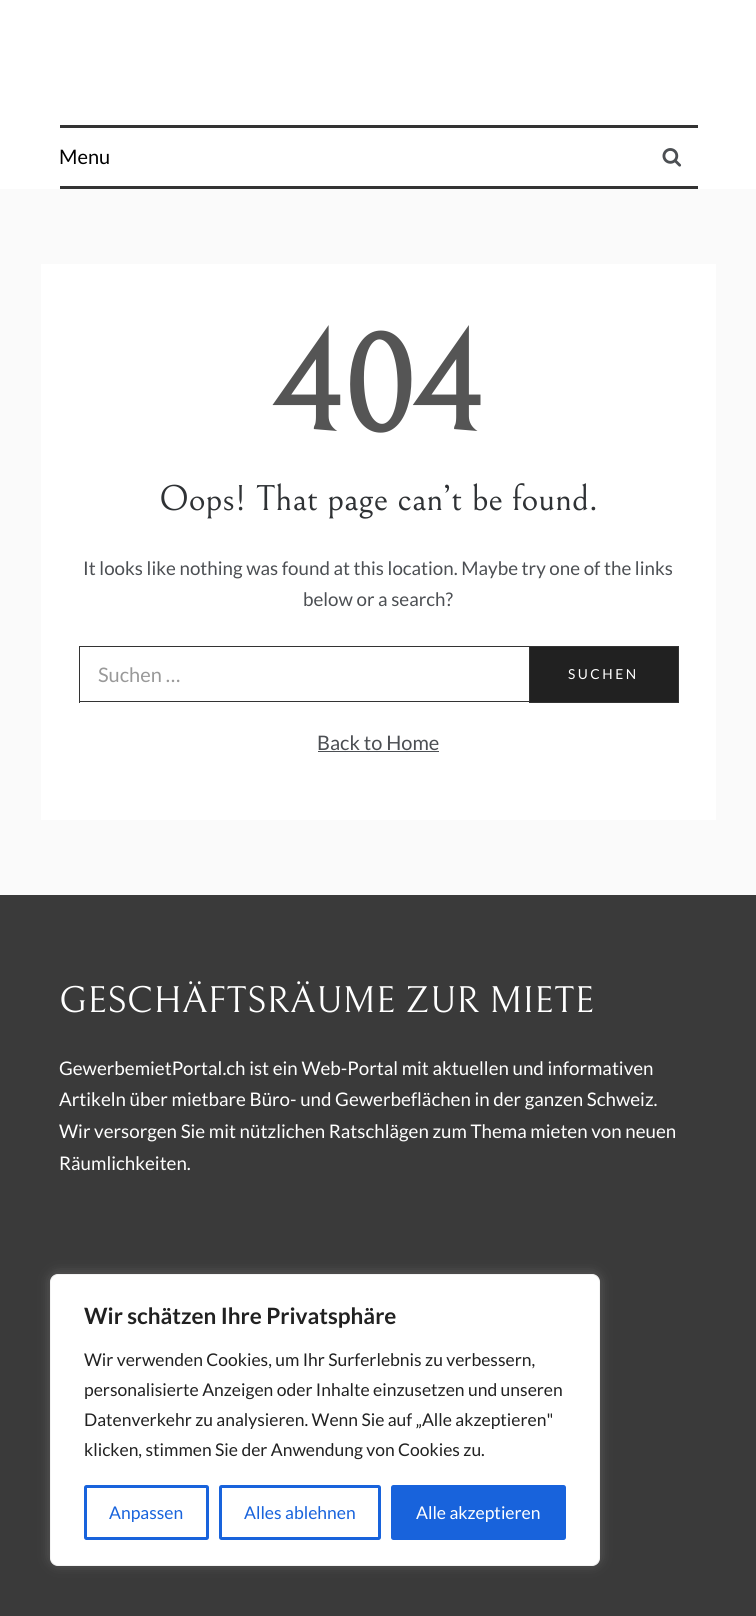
import math
import cairo


def write_spaced(ctx, x, y, s, letter, word):
	ctx.move_to(x, y)
	for ch in s:
		ctx.show_text(ch)
		ctx.rel_move_to(letter + word * (ch == ' '), 0)

def round_path(ctx, x, y, w, h, r):
	ctx.new_sub_path()
	for i, (u, v) in enumerate([(x + w - r, y + h - r), (x + r, y + h - r), (x + r, y + r), (x + w - r, y + r)]):
		ctx.arc(u, v, r, i * math.pi / 2, (i + 1) * math.pi / 2)
	ctx.close_path()

def blur_box(ctx, x, y, w, h, r, blur, alpha):
	ctx.push_group_with_content(cairo.CONTENT_ALPHA)
	ctx.set_operator(cairo.OPERATOR_SOURCE)
	for i in range(15, -16, -2):
		e = blur * i / 6
		if min(w, h) + 2 * e > 0:
			ctx.set_source_rgba(0, 0, 0, alpha * math.erfc((i - 1) / 8.5) / 2)
			round_path(ctx, x - e, y - e, w + 2 * e, h + 2 * e, max(0, min(r + e + blur * .6, min(w, h) / 2 + e)))
			ctx.fill()
	ctx.mask(ctx.pop_group())

def paste(ctx, path, x, y, w, h):
	ctx.save()
	ctx.set_source_surface(cairo.ImageSurface.create_from_png(path), x, y)
	ctx.rectangle(x, y, w, h)
	ctx.fill()
	ctx.restore()

def draw(ctx):
	ctx.set_source_rgb(0.98, 0.98, 0.98)
	ctx.paint()
	ctx.set_source_rgb(1, 1, 1)
	ctx.rectangle(0, 0, 756, 189)
	ctx.fill()
	ctx.set_source_rgb(0.2, 0.2, 0.2)
	ctx.rectangle(60, 125, 638, 3)
	ctx.rectangle(60, 186, 638, 3)
	ctx.fill()
	ctx.select_font_face('Lato')
	ctx.set_font_size(20)
	ctx.set_source_rgb(0, 0, 0)
	ctx.move_to(59, 164)
	ctx.show_text('Menu')
	paste(ctx, 'media/1.png', 662, 148, 20, 19)
	ctx.set_source_rgb(1, 1, 1)
	ctx.rectangle(41, 264, 675, 556)
	ctx.fill()
	ctx.select_font_face('Bellefair', cairo.FONT_SLANT_NORMAL, cairo.FONT_WEIGHT_BOLD)
	ctx.set_font_size(138)
	ctx.set_source_rgb(0.333, 0.333, 0.333)
	ctx.move_to(274, 431)
	ctx.show_text('404')
	ctx.select_font_face('Bellefair')
	ctx.set_font_size(36.25)
	ctx.set_source_rgb(0.184, 0.196, 0.208)
	ctx.move_to(159, 510)
	ctx.show_text('Oops! That page can’t be found.')
	ctx.select_font_face('Lato')
	ctx.set_font_size(18.75)
	ctx.set_source_rgb(0.298, 0.31, 0.325)
	ctx.move_to(83, 575)
	ctx.show_text('It looks like nothing was found at this location. Maybe try one of the links')
	ctx.move_to(303, 606)
	ctx.show_text('below or a search?')
	ctx.set_source_rgb(0.2, 0.2, 0.2)
	ctx.rectangle(79, 646, 450, 1)
	ctx.rectangle(79, 701, 450, 1)
	ctx.rectangle(79, 646, 1, 57)
	ctx.fill()
	ctx.set_font_size(20)
	ctx.set_source_rgb(0.6, 0.6, 0.6)
	ctx.move_to(98, 682)
	ctx.show_text('Suchen …')
	ctx.set_source_rgb(0.129, 0.129, 0.129)
	ctx.rectangle(529.5, 646.5, 149, 56)
	ctx.fill_preserve()
	ctx.set_source_rgb(0.2, 0.2, 0.2)
	ctx.set_line_width(1)
	ctx.stroke()
	ctx.set_font_size(13.75)
	ctx.set_source_rgb(1, 1, 1)
	write_spaced(ctx, 568, 679, 'SUCHEN', 2.5, 0)
	ctx.set_font_size(20)
	ctx.set_source_rgb(0.298, 0.31, 0.325)
	ctx.move_to(317, 750)
	ctx.show_text('Back to Home')
	ctx.rectangle(318, 751, 121, 1)
	ctx.fill()
	ctx.set_source_rgb(0.227, 0.227, 0.227)
	ctx.rectangle(0, 895, 756, 721)
	ctx.fill()
	ctx.select_font_face('Bellefair')
	ctx.set_font_size(37.5)
	ctx.set_source_rgb(1, 1, 1)
	ctx.move_to(59, 1012)
	ctx.show_text('GESCHÄFTSRÄUME ZUR MIETE')
	ctx.select_font_face('Lato')
	ctx.set_font_size(18.75)
	for x, y, s in [
		(59, 1075, 'GewerbemietPortal.ch ist ein Web-Portal mit aktuellen und informativen'),
		(59, 1106, 'Artikeln über mietbare Büro- und Gewerbeflächen in der ganzen Schweiz.'),
		(59, 1138, 'Wir versorgen Sie mit nützlichen Ratschlägen zum Thema mieten von neuen'),
		(59, 1170, 'Räumlichkeiten.'),
	]:
		ctx.move_to(x, y)
		ctx.show_text(s)
	ctx.set_source_rgb(0.675, 0.671, 0.671)
	blur_box(ctx, 50, 1273, 550, 292, 8, 6, 0.3)
	ctx.set_source_rgb(1, 1, 1)
	round_path(ctx, 50.5, 1274.5, 549, 291, 7.5)
	ctx.fill_preserve()
	ctx.set_source_rgb(0.957, 0.957, 0.957)
	ctx.stroke()
	ctx.select_font_face('Lato', cairo.FONT_SLANT_NORMAL, cairo.FONT_WEIGHT_BOLD)
	ctx.set_font_size(22.5)
	ctx.set_source_rgb(0.129, 0.129, 0.129)
	ctx.move_to(84, 1324)
	ctx.show_text('Wir schätzen Ihre Privatsphäre')
	ctx.select_font_face('Lato')
	ctx.set_font_size(17.5)
	for x, y, s in [
		(84, 1366, 'Wir verwenden Cookies, um Ihr Surferlebnis zu verbessern,'),
		(84, 1396, 'personalisierte Anzeigen oder Inhalte einzusetzen und unseren'),
		(84, 1426, 'Datenverkehr zu analysieren. Wenn Sie auf „Alle akzeptieren"'),
		(84, 1456, 'klicken, stimmen Sie der Anwendung von Cookies zu.'),
	]:
		ctx.move_to(x, y)
		ctx.show_text(s)
	round_path(ctx, 85.5, 1486.5, 122, 52, 1)
	ctx.set_source_rgb(0.094, 0.388, 0.863)
	ctx.set_line_width(3)
	ctx.stroke()
	ctx.move_to(109, 1519)
	ctx.show_text('Anpassen')
	round_path(ctx, 220.5, 1486.5, 159, 52, 1)
	ctx.stroke()
	ctx.move_to(244, 1519)
	ctx.show_text('Alles ablehnen')
	round_path(ctx, 392.5, 1486.5, 172, 52, 1)
	ctx.fill_preserve()
	ctx.stroke()
	ctx.set_source_rgb(1, 1, 1)
	ctx.move_to(416, 1519)
	ctx.show_text('Alle akzeptieren')


surface = cairo.ImageSurface(cairo.FORMAT_RGB24, 756, 1616)
ctx = cairo.Context(surface)
options = cairo.FontOptions()
options.set_hint_metrics(cairo.HINT_METRICS_OFF)
options.set_hint_style(cairo.HINT_STYLE_NONE)
ctx.set_font_options(options)
ctx.set_miter_limit(4)
draw(ctx)
surface.write_to_png('image.png')
